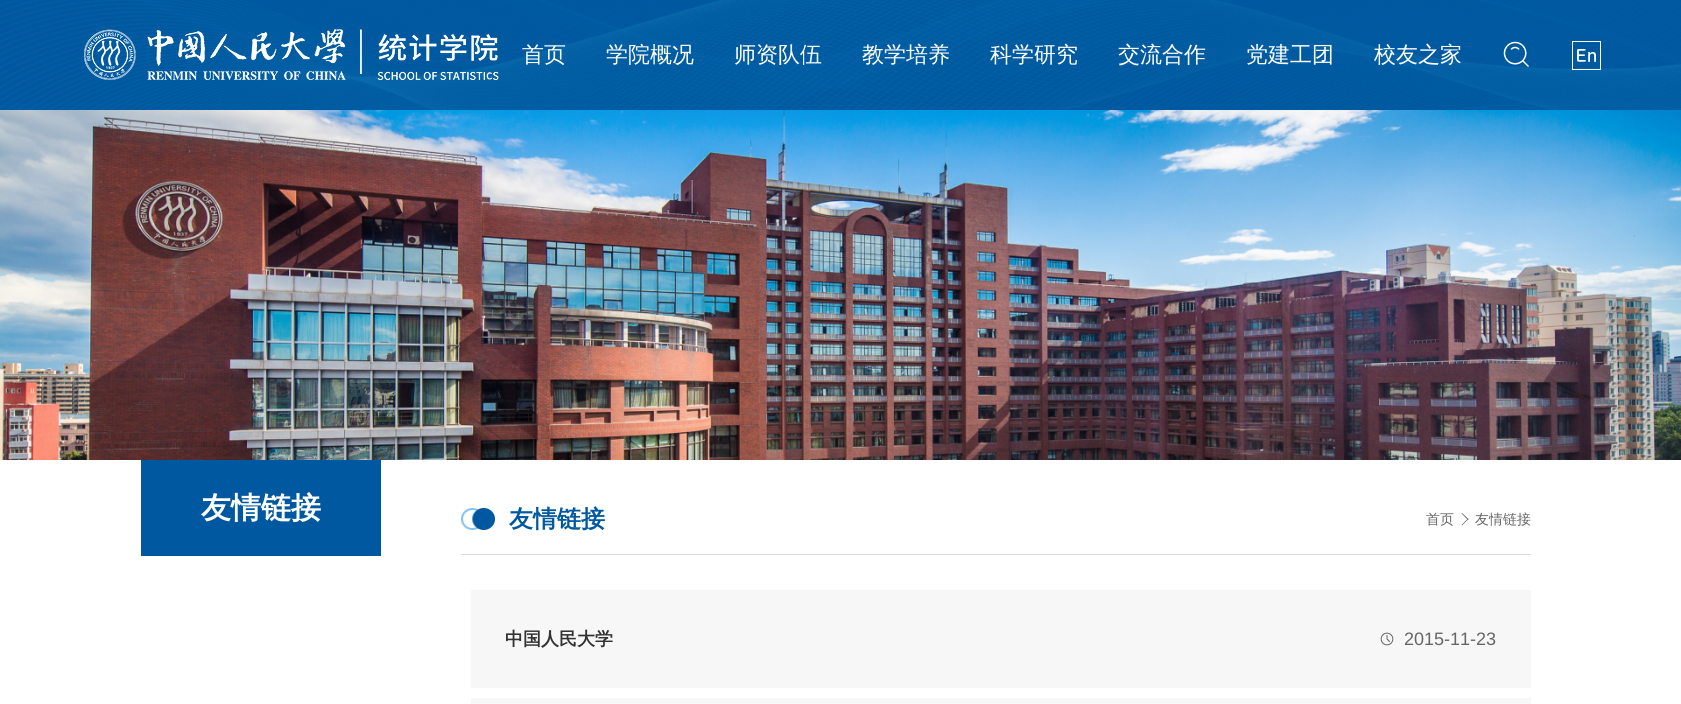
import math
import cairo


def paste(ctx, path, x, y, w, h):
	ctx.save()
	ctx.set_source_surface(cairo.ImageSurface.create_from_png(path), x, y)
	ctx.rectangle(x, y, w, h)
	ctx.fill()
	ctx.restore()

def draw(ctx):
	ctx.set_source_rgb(1, 1, 1)
	ctx.paint()
	paste(ctx, 'media/1.png', 0, 0, 1681, 110)
	paste(ctx, 'media/2.png', 83, 28, 416, 53)
	ctx.select_font_face('WenQuanYi Zen Hei Medium')
	ctx.set_font_size(22)
	ctx.set_source_rgb(1, 1, 1)
	for x, y, s in [
		(522, 62, '首页'),
		(606, 62, '学院概况'),
		(734, 62, '师资队伍'),
		(862, 62, '教学培养'),
		(990, 62, '科学研究'),
		(1118, 62, '交流合作'),
		(1246, 62, '党建工团'),
		(1374, 62, '校友之家'),
	]:
		ctx.move_to(x, y)
		ctx.show_text(s)
	paste(ctx, 'media/3.png', 1503, 41, 26, 26)
	paste(ctx, 'media/4.png', 1572, 41, 29, 29)
	paste(ctx, 'media/5.png', 0, 110, 1681, 350)
	ctx.set_source_rgb(0, 0.349, 0.627)
	ctx.rectangle(141, 460, 240, 96)
	ctx.fill()
	ctx.select_font_face('WenQuanYi Zen Hei', cairo.FONT_SLANT_NORMAL, cairo.FONT_WEIGHT_BOLD)
	ctx.set_font_size(30)
	ctx.set_source_rgb(1, 1, 1)
	ctx.move_to(201, 518)
	ctx.show_text('友情链接')
	ctx.set_source_rgb(0.871, 0.871, 0.871)
	ctx.rectangle(461, 554, 1070, 1)
	ctx.fill()
	paste(ctx, 'media/6.png', 461, 508, 34, 22)
	ctx.set_font_size(24)
	ctx.set_source_rgb(0, 0.349, 0.627)
	ctx.move_to(509, 527)
	ctx.show_text('友情链接')
	ctx.select_font_face('WenQuanYi Zen Hei Medium')
	ctx.set_font_size(14)
	ctx.set_source_rgb(0.4, 0.4, 0.4)
	ctx.move_to(1426, 524)
	ctx.show_text('首页')
	ctx.new_path()
	ctx.move_to(1462, 513)
	ctx.line_to(1468.5, 519)
	ctx.line_to(1468, 520)
	ctx.line_to(1461.5, 513.5)
	ctx.close_path()
	ctx.fill()
	ctx.new_path()
	ctx.move_to(1468, 518.5)
	ctx.line_to(1468.5, 519)
	ctx.line_to(1462, 525.5)
	ctx.line_to(1461.5, 525)
	ctx.close_path()
	ctx.fill()
	ctx.move_to(1475, 524)
	ctx.show_text('友情链接')
	ctx.set_source_rgb(0.965, 0.965, 0.965)
	ctx.rectangle(471, 590, 1060, 98)
	ctx.fill()
	ctx.select_font_face('WenQuanYi Zen Hei', cairo.FONT_SLANT_NORMAL, cairo.FONT_WEIGHT_BOLD)
	ctx.set_font_size(18)
	ctx.set_source_rgb(0.2, 0.2, 0.2)
	ctx.move_to(505, 645)
	ctx.show_text('中国人民大学')
	paste(ctx, 'media/7.png', 1380, 632, 14, 14)
	ctx.select_font_face('Liberation Sans')
	ctx.set_source_rgb(0.4, 0.4, 0.4)
	ctx.move_to(1404, 645)
	ctx.show_text('2015-11-23')
	ctx.set_source_rgb(0.965, 0.965, 0.965)
	ctx.rectangle(471, 698, 1060, 6)
	ctx.fill()


surface = cairo.ImageSurface(cairo.FORMAT_RGB24, 1681, 704)
ctx = cairo.Context(surface)
options = cairo.FontOptions()
options.set_hint_metrics(cairo.HINT_METRICS_OFF)
options.set_hint_style(cairo.HINT_STYLE_NONE)
ctx.set_font_options(options)
ctx.set_miter_limit(4)
draw(ctx)
surface.write_to_png('image.png')
